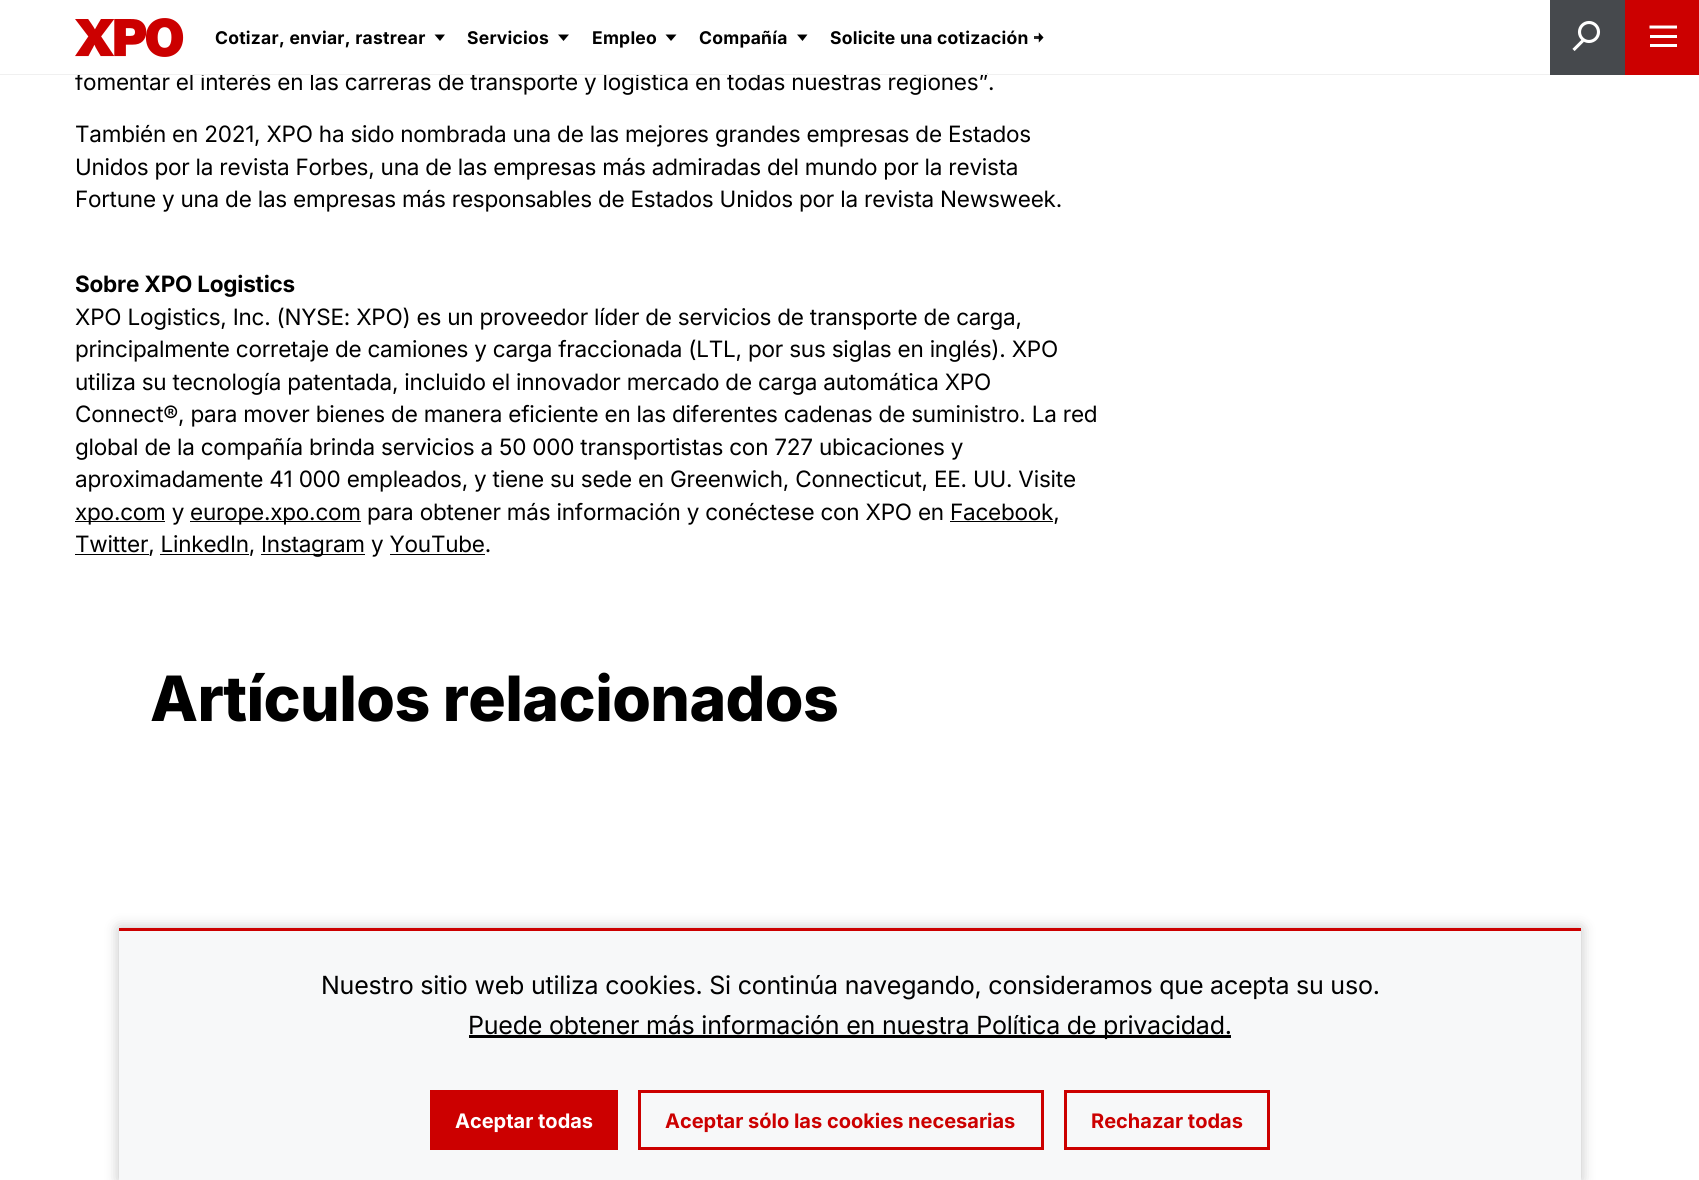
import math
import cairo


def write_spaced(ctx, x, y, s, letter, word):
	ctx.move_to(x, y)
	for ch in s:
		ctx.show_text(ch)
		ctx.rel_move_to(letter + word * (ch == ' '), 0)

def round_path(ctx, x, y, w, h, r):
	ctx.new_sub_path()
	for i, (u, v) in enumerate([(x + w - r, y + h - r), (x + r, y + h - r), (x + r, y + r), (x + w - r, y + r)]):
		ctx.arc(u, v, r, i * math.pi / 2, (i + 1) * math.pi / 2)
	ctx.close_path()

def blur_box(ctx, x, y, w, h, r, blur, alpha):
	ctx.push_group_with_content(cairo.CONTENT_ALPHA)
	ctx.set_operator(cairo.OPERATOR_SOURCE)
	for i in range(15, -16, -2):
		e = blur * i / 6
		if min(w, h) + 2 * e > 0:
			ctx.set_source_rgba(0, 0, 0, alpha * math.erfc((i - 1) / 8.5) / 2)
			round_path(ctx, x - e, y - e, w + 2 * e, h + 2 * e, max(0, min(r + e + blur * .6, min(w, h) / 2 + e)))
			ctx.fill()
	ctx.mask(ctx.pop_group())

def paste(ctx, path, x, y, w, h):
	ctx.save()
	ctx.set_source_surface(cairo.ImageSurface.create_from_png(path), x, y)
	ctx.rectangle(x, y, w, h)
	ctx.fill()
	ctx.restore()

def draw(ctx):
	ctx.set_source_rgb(1, 1, 1)
	ctx.paint()
	ctx.select_font_face('Inter')
	ctx.set_font_size(22.5)
	ctx.set_source_rgb(0, 0, 0)
	write_spaced(ctx, 75, 90, 'fomentar el interés en las carreras de transporte y logística en todas nuestras regiones”.', -0.22, 0)
	ctx.set_source_rgb(1, 1, 1)
	ctx.rectangle(78, 72, 909, 2)
	ctx.fill()
	ctx.set_source_rgb(0.941, 0.941, 0.941)
	ctx.rectangle(0, 74, 1550, 1)
	ctx.fill()
	paste(ctx, 'media/1.png', 75, 18, 109, 39)
	ctx.select_font_face('Inter', cairo.FONT_SLANT_NORMAL, cairo.FONT_WEIGHT_BOLD)
	ctx.set_font_size(17.5)
	ctx.set_source_rgb(0, 0, 0)
	write_spaced(ctx, 215, 44, 'Cotizar, enviar, rastrear', 0.25, 0)
	ctx.new_path()
	ctx.move_to(440, 41)
	ctx.line_to(434.5, 34.5)
	ctx.line_to(445, 34.5)
	ctx.close_path()
	ctx.fill()
	write_spaced(ctx, 467, 44, 'Servicios', 0.25, 0)
	ctx.new_path()
	ctx.move_to(563.5, 41)
	ctx.line_to(558, 34.5)
	ctx.line_to(569, 34.5)
	ctx.close_path()
	ctx.fill()
	write_spaced(ctx, 592, 44, 'Empleo', 0.25, 0)
	ctx.new_path()
	ctx.move_to(671, 41)
	ctx.line_to(665.5, 34.5)
	ctx.line_to(676.5, 34.5)
	ctx.close_path()
	ctx.fill()
	write_spaced(ctx, 699, 44, 'Compañía', 0.25, 0)
	ctx.new_path()
	ctx.move_to(802.5, 41)
	ctx.line_to(797, 34.5)
	ctx.line_to(807.5, 34.5)
	ctx.close_path()
	ctx.fill()
	write_spaced(ctx, 830, 44, 'Solicite una cotización', 0.25, 0)
	paste(ctx, 'media/2.png', 1034, 32, 10, 11)
	ctx.set_source_rgb(0.275, 0.286, 0.302)
	ctx.rectangle(1550, 0, 75, 75)
	ctx.fill()
	ctx.arc(1589, 32, 9.5, 0, 2 * math.pi)
	ctx.set_source_rgb(1, 1, 1)
	ctx.set_line_width(3.1)
	ctx.stroke()
	ctx.new_path()
	ctx.move_to(1583, 40.5)
	ctx.line_to(1573.5, 50)
	ctx.stroke()
	ctx.set_source_rgb(0.8, 0, 0)
	ctx.rectangle(1625, 0, 74, 75)
	ctx.fill()
	ctx.new_path()
	ctx.move_to(1651, 27)
	ctx.line_to(1675.5, 27)
	ctx.set_source_rgb(1, 1, 1)
	ctx.set_line_width(3)
	ctx.set_line_cap(cairo.LINE_CAP_SQUARE)
	ctx.set_line_join(cairo.LINE_JOIN_ROUND)
	ctx.stroke()
	ctx.rectangle(1650, 35, 27, 3)
	ctx.fill()
	ctx.rectangle(1650, 44, 27, 3)
	ctx.fill()
	ctx.select_font_face('Inter')
	ctx.set_font_size(22.5)
	ctx.set_source_rgb(0, 0, 0)
	for x, y, s in [
		(75, 142, 'También en 2021, XPO ha sido nombrada una de las mejores grandes empresas de Estados'),
		(75, 175, 'Unidos por la revista Forbes, una de las empresas más admiradas del mundo por la revista'),
		(75, 207, 'Fortune y una de las empresas más responsables de Estados Unidos por la revista Newsweek.'),
	]:
		write_spaced(ctx, x, y, s, -0.22, 0)
	ctx.select_font_face('Inter', cairo.FONT_SLANT_NORMAL, cairo.FONT_WEIGHT_BOLD)
	write_spaced(ctx, 75, 292, 'Sobre XPO Logistics', -0.22, 0)
	ctx.select_font_face('Inter')
	for x, y, s in [
		(75, 325, 'XPO Logistics, Inc. (NYSE: XPO) es un proveedor líder de servicios de transporte de carga,'),
		(75, 357, 'principalmente corretaje de camiones y carga fraccionada (LTL, por sus siglas en inglés). XPO'),
		(75, 390, 'utiliza su tecnología patentada, incluido el innovador mercado de carga automática XPO'),
		(75, 422, 'Connect®, para mover bienes de manera eficiente en las diferentes cadenas de suministro. La red'),
		(75, 455, 'global de la compañía brinda servicios a 50 000 transportistas con 727 ubicaciones y'),
		(75, 487, 'aproximadamente 41 000 empleados, y tiene su sede en Greenwich, Connecticut, EE. UU. Visite'),
	]:
		write_spaced(ctx, x, y, s, -0.22, 0)
	ctx.rectangle(75, 521, 90, 1)
	ctx.fill()
	write_spaced(ctx, 75, 520, 'xpo.com y', -0.22, 0)
	ctx.rectangle(190, 521, 171, 1)
	ctx.fill()
	write_spaced(ctx, 190, 520, 'europe.xpo.com para obtener más información y conéctese con XPO en Facebook,', -0.22, 0)
	ctx.rectangle(950, 521, 103, 1)
	ctx.fill()
	ctx.rectangle(75, 554, 74, 1)
	ctx.fill()
	write_spaced(ctx, 75, 552, 'Twitter, LinkedIn,', -0.22, 0)
	ctx.rectangle(261, 554, 104, 1)
	ctx.fill()
	write_spaced(ctx, 261, 552, 'Instagram y YouTube.', -0.22, 0)
	ctx.rectangle(160, 554, 89, 1)
	ctx.fill()
	ctx.rectangle(390, 554, 95, 1)
	ctx.fill()
	ctx.select_font_face('Inter ExtraBold')
	ctx.set_font_size(62.5)
	write_spaced(ctx, 150, 721, 'Artículos relacionados', -0.6, 0)
	ctx.set_source_rgb(0, 0, 0)
	blur_box(ctx, 119, 928, 1462, 252, 0, 7, 0.25)
	ctx.set_source_rgb(0.965, 0.969, 0.973)
	ctx.rectangle(119, 931, 1462, 249)
	ctx.fill()
	ctx.set_source_rgb(0.8, 0, 0)
	ctx.rectangle(119, 928, 1462, 3)
	ctx.fill()
	ctx.select_font_face('Inter')
	ctx.set_font_size(25)
	ctx.set_source_rgb(0, 0, 0)
	write_spaced(ctx, 321, 994, 'Nuestro sitio web utiliza cookies. Si continúa navegando, consideramos que acepta su uso.', -0.22, 0)
	ctx.rectangle(469, 1035, 762, 3)
	ctx.fill()
	write_spaced(ctx, 468, 1034, 'Puede obtener más información en nuestra Política de privacidad.', -0.22, 0)
	ctx.set_source_rgb(0.8, 0, 0)
	ctx.rectangle(430, 1090, 188, 60)
	ctx.fill()
	ctx.select_font_face('Inter', cairo.FONT_SLANT_NORMAL, cairo.FONT_WEIGHT_BOLD)
	ctx.set_font_size(20)
	ctx.set_source_rgb(1, 1, 1)
	ctx.move_to(455, 1128)
	ctx.show_text('Aceptar todas')
	ctx.rectangle(639.5, 1091.5, 403, 57)
	ctx.set_source_rgb(0.8, 0, 0)
	ctx.set_line_cap(cairo.LINE_CAP_BUTT)
	ctx.set_line_join(cairo.LINE_JOIN_MITER)
	ctx.stroke()
	ctx.move_to(665, 1128)
	ctx.show_text('Aceptar sólo las cookies necesarias')
	ctx.rectangle(1065.5, 1091.5, 203, 57)
	ctx.stroke()
	ctx.move_to(1091, 1128)
	ctx.show_text('Rechazar todas')


surface = cairo.ImageSurface(cairo.FORMAT_RGB24, 1699, 1180)
ctx = cairo.Context(surface)
options = cairo.FontOptions()
options.set_hint_metrics(cairo.HINT_METRICS_OFF)
options.set_hint_style(cairo.HINT_STYLE_NONE)
ctx.set_font_options(options)
ctx.set_miter_limit(4)
draw(ctx)
surface.write_to_png('image.png')
